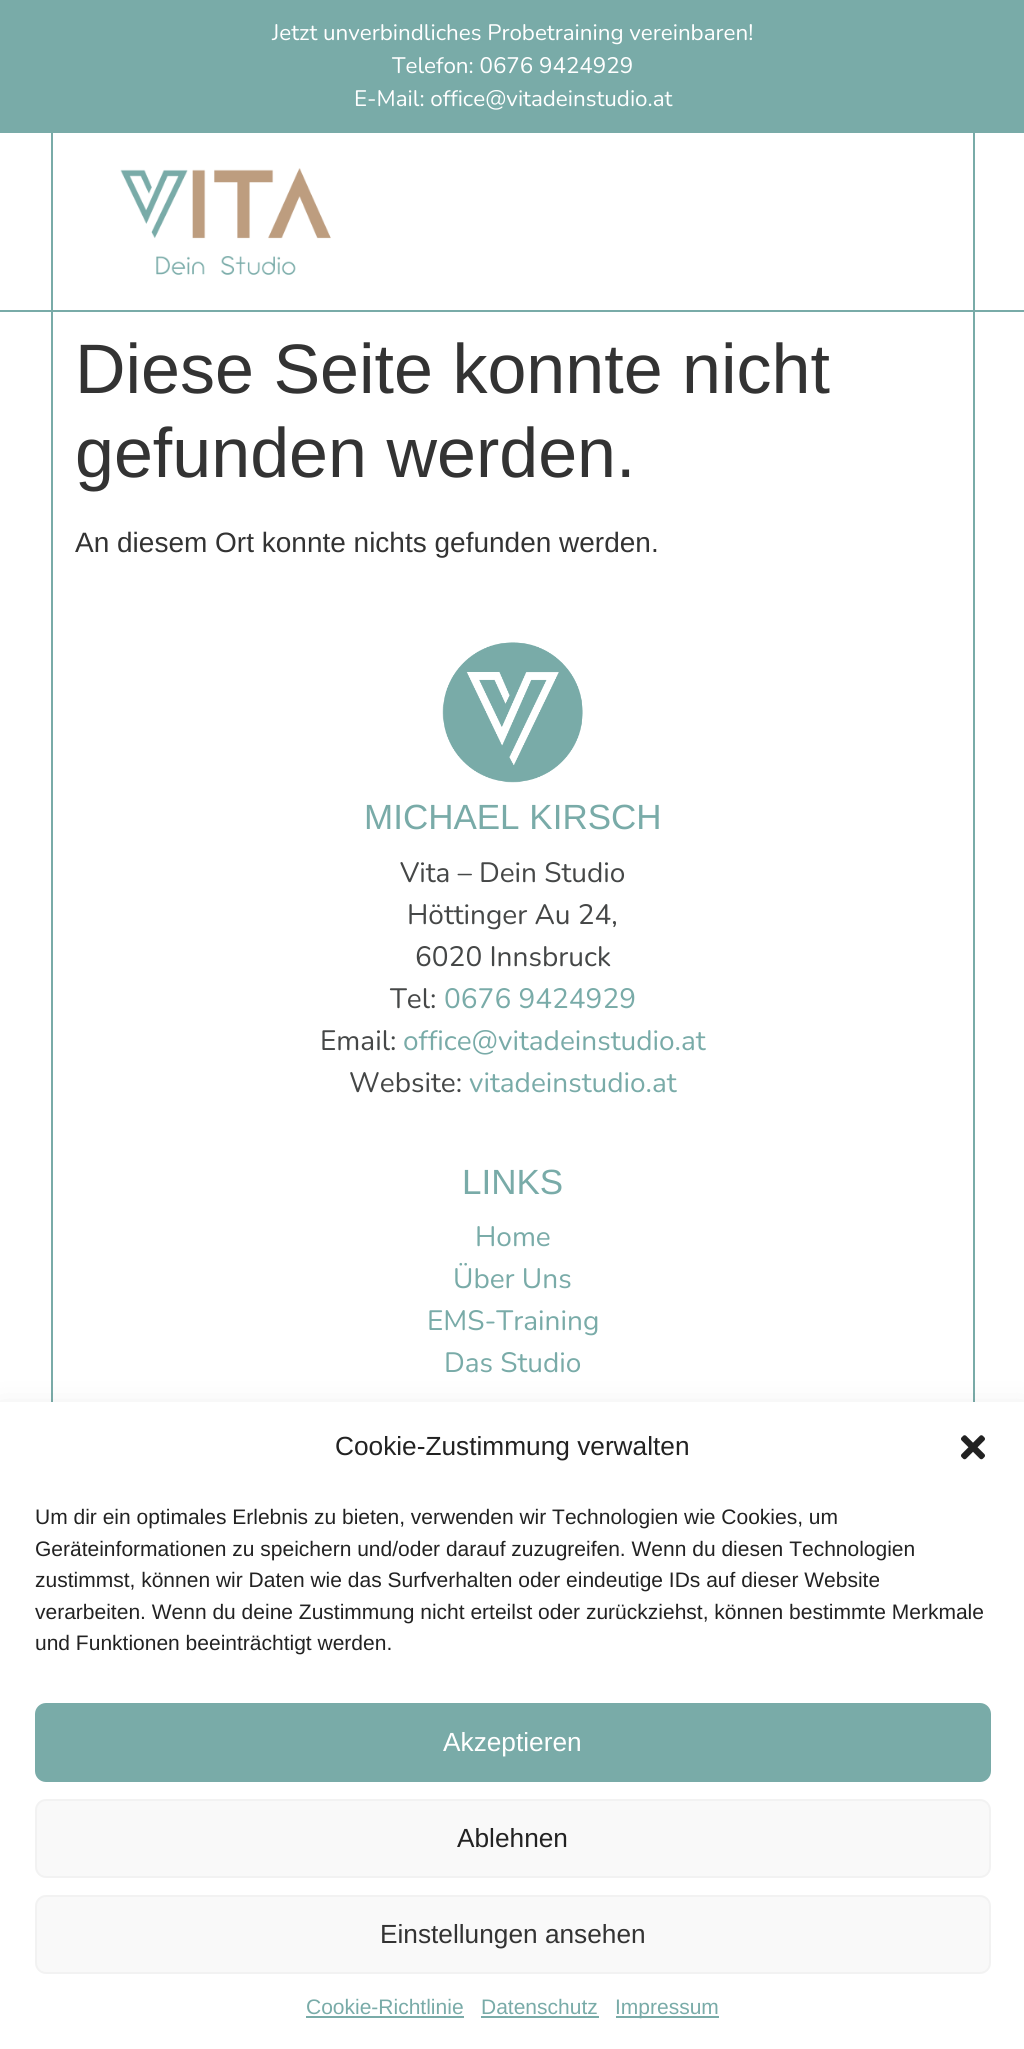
import math
import cairo


def round_path(ctx, x, y, w, h, r):
	ctx.new_sub_path()
	for i, (u, v) in enumerate([(x + w - r, y + h - r), (x + r, y + h - r), (x + r, y + r), (x + w - r, y + r)]):
		ctx.arc(u, v, r, i * math.pi / 2, (i + 1) * math.pi / 2)
	ctx.close_path()

def blur_box(ctx, x, y, w, h, r, blur, alpha):
	ctx.push_group_with_content(cairo.CONTENT_ALPHA)
	ctx.set_operator(cairo.OPERATOR_SOURCE)
	for i in range(15, -16, -2):
		e = blur * i / 6
		if min(w, h) + 2 * e > 0:
			ctx.set_source_rgba(0, 0, 0, alpha * math.erfc((i - 1) / 8.5) / 2)
			round_path(ctx, x - e, y - e, w + 2 * e, h + 2 * e, max(0, min(r + e + blur * .6, min(w, h) / 2 + e)))
			ctx.fill()
	ctx.mask(ctx.pop_group())

def paste(ctx, path, x, y, w, h):
	ctx.save()
	ctx.set_source_surface(cairo.ImageSurface.create_from_png(path), x, y)
	ctx.rectangle(x, y, w, h)
	ctx.fill()
	ctx.restore()

def draw(ctx):
	ctx.set_source_rgb(1, 1, 1)
	ctx.paint()
	ctx.set_source_rgb(0.475, 0.671, 0.659)
	ctx.rectangle(0, 0, 1024, 133)
	ctx.fill()
	ctx.select_font_face('Nunito')
	ctx.set_font_size(22.4)
	ctx.set_source_rgb(1, 1, 1)
	for x, y, s in [
		(272, 40, 'Jetzt unverbindliches Probetraining vereinbaren!'),
		(392, 73, 'Telefon: 0676 9424929'),
		(354, 106, 'E-Mail: office@vitadeinstudio.at'),
	]:
		ctx.move_to(x, y)
		ctx.show_text(s)
	ctx.set_source_rgb(0.475, 0.671, 0.659)
	ctx.rectangle(0, 310, 1024, 2)
	ctx.fill()
	paste(ctx, 'media/1.png', 120, 168, 211, 107)
	ctx.select_font_face('Liberation Sans')
	ctx.set_font_size(70)
	ctx.set_source_rgb(0.2, 0.2, 0.2)
	ctx.move_to(75, 393)
	ctx.show_text('Diese Seite konnte nicht')
	ctx.move_to(75, 477)
	ctx.show_text('gefunden werden.')
	ctx.set_font_size(28)
	ctx.move_to(75, 552)
	ctx.show_text('An diesem Ort konnte nichts gefunden werden.')
	paste(ctx, 'media/2.png', 442, 642, 141, 141)
	ctx.set_font_size(35)
	ctx.set_source_rgb(0.475, 0.671, 0.659)
	ctx.move_to(364, 829)
	ctx.show_text('MICHAEL KIRSCH')
	ctx.select_font_face('Nunito')
	ctx.set_font_size(28)
	ctx.set_source_rgb(0.271, 0.278, 0.278)
	for x, y, s in [
		(400, 882, 'Vita – Dein Studio'),
		(407, 924, 'Höttinger Au 24,'),
		(415, 966, '6020 Innsbruck'),
		(390, 1008, 'Tel:'),
	]:
		ctx.move_to(x, y)
		ctx.show_text(s)
	ctx.set_source_rgb(0.475, 0.671, 0.659)
	ctx.move_to(444, 1008)
	ctx.show_text('0676 9424929')
	ctx.set_source_rgb(0.271, 0.278, 0.278)
	ctx.move_to(320, 1050)
	ctx.show_text('Email:')
	ctx.set_source_rgb(0.475, 0.671, 0.659)
	ctx.move_to(403, 1050)
	ctx.show_text('office@vitadeinstudio.at')
	ctx.set_source_rgb(0.271, 0.278, 0.278)
	ctx.move_to(349, 1092)
	ctx.show_text('Website:')
	ctx.set_source_rgb(0.475, 0.671, 0.659)
	ctx.move_to(469, 1092)
	ctx.show_text('vitadeinstudio.at')
	ctx.select_font_face('Liberation Sans')
	ctx.set_font_size(35)
	ctx.move_to(462, 1194)
	ctx.show_text('LINKS')
	ctx.select_font_face('Nunito')
	ctx.set_font_size(28)
	for x, y, s in [
		(475, 1246, 'Home'),
		(453, 1288, 'Über Uns'),
		(427, 1330, 'EMS-Training'),
		(444, 1372, 'Das Studio'),
	]:
		ctx.move_to(x, y)
		ctx.show_text(s)
	ctx.rectangle(51, 133, 2, 1269)
	ctx.fill()
	ctx.rectangle(973, 133, 2, 1269)
	ctx.fill()
	ctx.set_source_rgb(0, 0, 0)
	blur_box(ctx, 0, 1419, 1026, 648, 0, 17.5, 0.19)
	ctx.set_source_rgb(1, 1, 1)
	ctx.rectangle(0, 1402, 1024, 647)
	ctx.fill()
	ctx.select_font_face('Liberation Sans')
	ctx.set_font_size(26.25)
	ctx.set_source_rgb(0.133, 0.133, 0.133)
	ctx.move_to(335, 1455)
	ctx.show_text('Cookie-Zustimmung verwalten')
	paste(ctx, 'media/3.png', 961, 1435, 24, 25)
	ctx.set_font_size(21)
	for x, y, s in [
		(35, 1524, 'Um dir ein optimales Erlebnis zu bieten, verwenden wir Technologien wie Cookies, um'),
		(35, 1556, 'Geräteinformationen zu speichern und/oder darauf zuzugreifen. Wenn du diesen Technologien'),
		(35, 1587, 'zustimmst, können wir Daten wie das Surfverhalten oder eindeutige IDs auf dieser Website'),
		(35, 1619, 'verarbeiten. Wenn du deine Zustimmung nicht erteilst oder zurückziehst, können bestimmte Merkmale'),
		(35, 1650, 'und Funktionen beeinträchtigt werden.'),
	]:
		ctx.move_to(x, y)
		ctx.show_text(s)
	ctx.set_source_rgb(0.475, 0.671, 0.659)
	round_path(ctx, 36, 1704, 954, 77, 10)
	ctx.fill_preserve()
	ctx.stroke()
	ctx.set_font_size(26.25)
	ctx.set_source_rgb(1, 1, 1)
	ctx.move_to(443, 1751)
	ctx.show_text('Akzeptieren')
	ctx.set_source_rgb(0.976, 0.976, 0.976)
	round_path(ctx, 36, 1800, 954, 77, 10)
	ctx.fill_preserve()
	ctx.set_source_rgb(0.949, 0.949, 0.949)
	ctx.stroke()
	ctx.set_source_rgb(0.133, 0.133, 0.133)
	ctx.move_to(457, 1847)
	ctx.show_text('Ablehnen')
	ctx.set_source_rgb(0.976, 0.976, 0.976)
	round_path(ctx, 36, 1896, 954, 77, 10)
	ctx.fill_preserve()
	ctx.set_source_rgb(0.949, 0.949, 0.949)
	ctx.stroke()
	ctx.set_source_rgb(0.2, 0.2, 0.2)
	ctx.move_to(380, 1943)
	ctx.show_text('Einstellungen ansehen')
	ctx.set_font_size(21)
	ctx.set_source_rgb(0.475, 0.671, 0.659)
	ctx.move_to(306, 2014)
	ctx.show_text('Cookie-Richtlinie')
	ctx.rectangle(306, 2016, 158, 2)
	ctx.fill()
	ctx.move_to(481, 2014)
	ctx.show_text('Datenschutz')
	ctx.rectangle(481, 2016, 118, 2)
	ctx.fill()
	ctx.rectangle(616, 2016, 103, 2)
	ctx.fill()
	ctx.move_to(615, 2014)
	ctx.show_text('Impressum')


surface = cairo.ImageSurface(cairo.FORMAT_RGB24, 1024, 2049)
ctx = cairo.Context(surface)
options = cairo.FontOptions()
options.set_hint_metrics(cairo.HINT_METRICS_OFF)
options.set_hint_style(cairo.HINT_STYLE_NONE)
ctx.set_font_options(options)
ctx.set_miter_limit(4)
draw(ctx)
surface.write_to_png('image.png')
